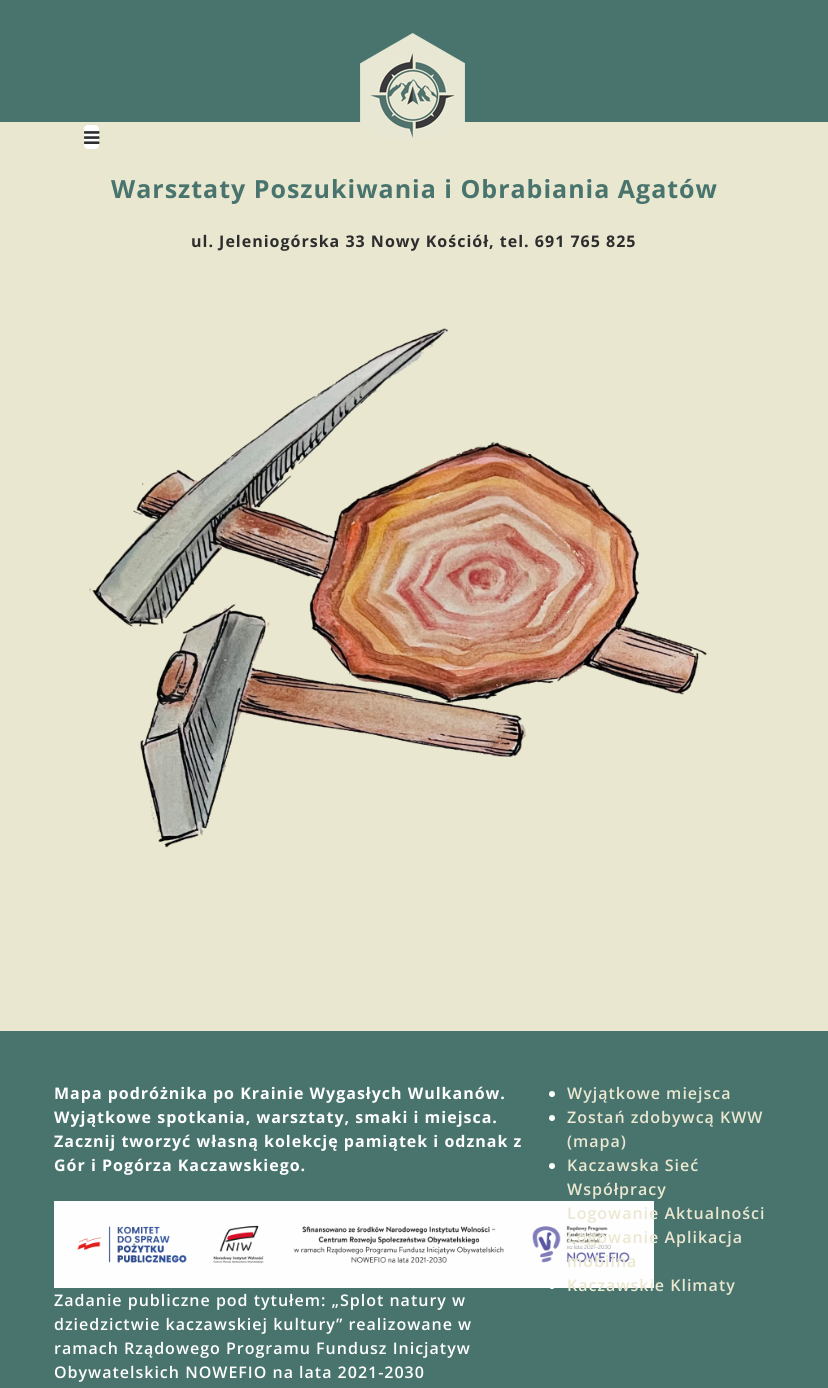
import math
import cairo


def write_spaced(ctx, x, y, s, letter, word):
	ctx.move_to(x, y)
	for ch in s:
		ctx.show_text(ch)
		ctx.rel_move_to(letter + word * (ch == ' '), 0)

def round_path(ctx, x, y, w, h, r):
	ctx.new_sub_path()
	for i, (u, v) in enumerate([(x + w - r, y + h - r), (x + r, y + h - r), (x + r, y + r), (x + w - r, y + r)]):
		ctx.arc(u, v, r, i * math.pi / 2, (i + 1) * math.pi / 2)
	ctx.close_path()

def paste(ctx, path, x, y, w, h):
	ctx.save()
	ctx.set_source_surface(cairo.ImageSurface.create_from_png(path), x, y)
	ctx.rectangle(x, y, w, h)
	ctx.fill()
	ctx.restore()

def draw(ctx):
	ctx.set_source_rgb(0.914, 0.906, 0.816)
	ctx.paint()
	ctx.set_source_rgb(0.282, 0.455, 0.427)
	ctx.rectangle(0, 0, 828, 122)
	ctx.fill()
	ctx.set_source_rgb(1, 1, 1)
	round_path(ctx, 84, 125, 15, 24, 4)
	ctx.fill()
	paste(ctx, 'media/1.png', 84, 131, 16, 13)
	paste(ctx, 'media/2.png', 360, 33, 105, 105)
	ctx.select_font_face('Open Sans', cairo.FONT_SLANT_NORMAL, cairo.FONT_WEIGHT_BOLD)
	ctx.set_font_size(25)
	ctx.set_source_rgb(0.282, 0.455, 0.427)
	write_spaced(ctx, 111, 198, 'Warsztaty Poszukiwania i Obrabiania Agatów', 1, 0)
	ctx.set_font_size(16)
	ctx.set_source_rgb(0.176, 0.176, 0.176)
	write_spaced(ctx, 191, 247, 'ul. Jeleniogórska 33 Nowy Kościół, tel. 691 765 825', 1, 0)
	paste(ctx, 'media/3.png', 89, 328, 618, 520)
	ctx.set_source_rgb(0.282, 0.455, 0.427)
	ctx.rectangle(0, 1031, 828, 357)
	ctx.fill()
	ctx.set_source_rgb(1, 1, 1)
	for x, y, s in [
		(54, 1099, 'Mapa podróżnika po Krainie Wygasłych Wulkanów.'),
		(54, 1123, 'Wyjątkowe spotkania, warsztaty, smaki i miejsca.'),
		(54, 1147, 'Zacznij tworzyć własną kolekcję pamiątek i odznak z'),
		(54, 1171, 'Gór i Pogórza Kaczawskiego.'),
	]:
		write_spaced(ctx, x, y, s, 1, 0)
	paste(ctx, 'media/4.png', 54, 1201, 600, 87)
	ctx.select_font_face('Open Sans SemiBold')
	for x, y, s in [
		(54, 1306, 'Zadanie publiczne pod tytułem: „Splot natury w'),
		(54, 1330, 'dziedzictwie kaczawskiej kultury” realizowane w'),
		(54, 1354, 'ramach Rządowego Programu Fundusz Inicjatyw'),
		(54, 1378, 'Obywatelskich NOWEFIO na lata 2021-2030'),
	]:
		write_spaced(ctx, x, y, s, 1, 0)
	ctx.new_path()
	ctx.arc(552, 1094, 3, 0, 2 * math.pi)
	ctx.fill()
	ctx.set_source_rgb(0.918, 0.906, 0.82)
	write_spaced(ctx, 567, 1099, 'Wyjątkowe miejsca', 1, 0)
	ctx.set_source_rgb(1, 1, 1)
	ctx.new_path()
	ctx.arc(552, 1118, 3, 0, 2 * math.pi)
	ctx.fill()
	ctx.set_source_rgb(0.918, 0.906, 0.82)
	write_spaced(ctx, 567, 1123, 'Zostań zdobywcą KWW', 1, 0)
	write_spaced(ctx, 567, 1147, '(mapa)', 1, 0)
	ctx.set_source_rgb(1, 1, 1)
	ctx.new_path()
	ctx.arc(552, 1166, 3, 0, 2 * math.pi)
	ctx.fill()
	ctx.set_source_rgb(0.918, 0.906, 0.82)
	for x, y, s in [
		(567, 1171, 'Kaczawska Sieć'),
		(567, 1195, 'Współpracy'),
		(567, 1219, 'Logowanie Aktualności'),
	]:
		write_spaced(ctx, x, y, s, 1, 0)
	ctx.set_source_rgb(1, 1, 1)
	ctx.new_path()
	ctx.arc(552, 1238, 3, 0, 2 * math.pi)
	ctx.fill()
	ctx.set_source_rgb(0.918, 0.906, 0.82)
	write_spaced(ctx, 567, 1243, 'Logowanie Aplikacja', 1, 0)
	write_spaced(ctx, 567, 1267, 'mobilna', 1, 0)
	ctx.set_source_rgb(1, 1, 1)
	ctx.new_path()
	ctx.arc(552, 1286, 3, 0, 2 * math.pi)
	ctx.fill()
	ctx.set_source_rgb(0.918, 0.906, 0.82)
	write_spaced(ctx, 567, 1291, 'Kaczawskie Klimaty', 1, 0)


surface = cairo.ImageSurface(cairo.FORMAT_RGB24, 828, 1388)
ctx = cairo.Context(surface)
options = cairo.FontOptions()
options.set_hint_metrics(cairo.HINT_METRICS_OFF)
options.set_hint_style(cairo.HINT_STYLE_NONE)
ctx.set_font_options(options)
ctx.set_miter_limit(4)
draw(ctx)
surface.write_to_png('image.png')
